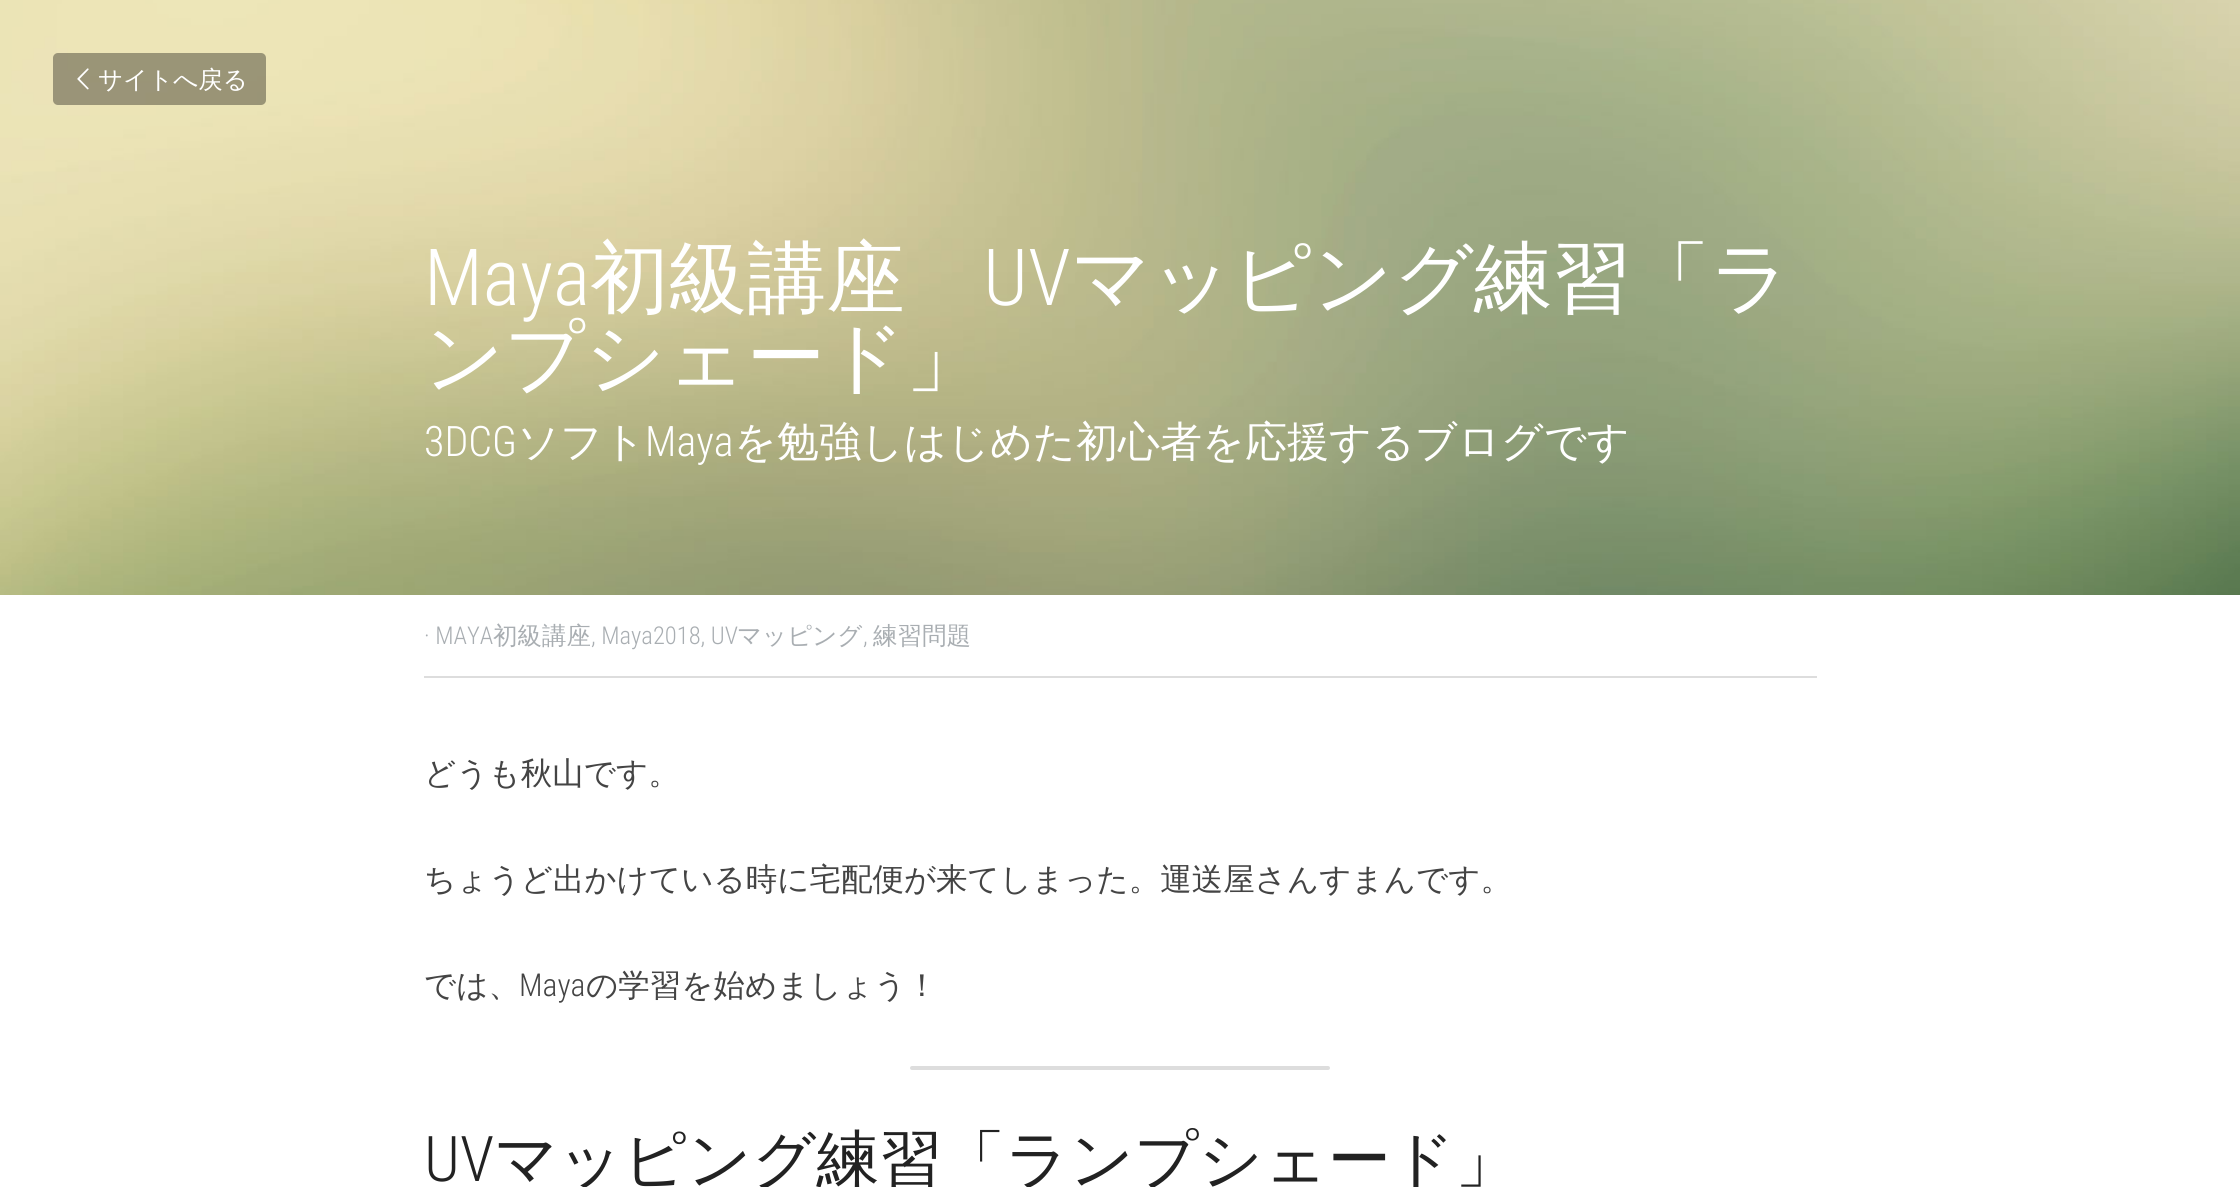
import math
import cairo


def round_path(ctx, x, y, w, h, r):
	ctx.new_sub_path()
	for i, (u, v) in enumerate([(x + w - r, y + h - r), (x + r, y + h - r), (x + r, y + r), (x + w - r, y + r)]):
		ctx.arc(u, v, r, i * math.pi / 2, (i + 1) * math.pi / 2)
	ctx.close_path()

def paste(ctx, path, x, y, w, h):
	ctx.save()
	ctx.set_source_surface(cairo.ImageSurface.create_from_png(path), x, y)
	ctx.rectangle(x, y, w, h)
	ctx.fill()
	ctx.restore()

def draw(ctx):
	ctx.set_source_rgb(1, 1, 1)
	ctx.paint()
	paste(ctx, 'media/1.png', 0, 0, 2240, 595)
	ctx.set_source_rgba(0, 0, 0, 0.35)
	round_path(ctx, 53, 53, 213, 52, 5)
	ctx.fill()
	paste(ctx, 'media/2.png', 77, 68, 12, 22)
	ctx.select_font_face('WenQuanYi Zen Hei Medium')
	ctx.set_font_size(24.5)
	ctx.set_source_rgb(1, 1, 1)
	ctx.move_to(98, 88)
	ctx.show_text('サイトへ戻る')
	ctx.select_font_face('Roboto Condensed Light')
	ctx.set_font_size(78.75)
	ctx.move_to(424, 305)
	ctx.show_text('Maya')
	ctx.select_font_face('WenQuanYi Zen Hei Medium')
	ctx.move_to(590, 305)
	ctx.show_text('初級講座')
	ctx.select_font_face('Roboto Condensed Light')
	ctx.move_to(983, 305)
	ctx.show_text('UV')
	ctx.select_font_face('WenQuanYi Zen Hei Medium')
	ctx.move_to(1071, 305)
	ctx.show_text('マッピング練習「ラ')
	ctx.move_to(424, 384)
	ctx.show_text('ンプシェード」')
	ctx.select_font_face('Roboto Condensed Light')
	ctx.set_font_size(42)
	ctx.move_to(424, 456)
	ctx.show_text('3DCG')
	ctx.select_font_face('WenQuanYi Zen Hei Medium')
	ctx.move_to(517, 456)
	ctx.show_text('ソフト')
	ctx.select_font_face('Roboto Condensed Light')
	ctx.move_to(645, 456)
	ctx.show_text('Maya')
	ctx.select_font_face('WenQuanYi Zen Hei Medium')
	ctx.move_to(734, 456)
	ctx.show_text('を勉強しはじめた初心者を応援するブログです')
	ctx.set_source_rgb(0.867, 0.867, 0.867)
	ctx.rectangle(424, 676, 1393, 2)
	ctx.fill()
	ctx.select_font_face('Roboto Condensed Light')
	ctx.set_font_size(24.5)
	ctx.set_source_rgb(0.663, 0.682, 0.698)
	ctx.move_to(424, 644)
	ctx.show_text('· MAYA')
	ctx.select_font_face('WenQuanYi Zen Hei Medium')
	ctx.move_to(493, 644)
	ctx.show_text('初級講座')
	ctx.select_font_face('Roboto Condensed Light')
	ctx.move_to(591, 644)
	ctx.show_text(', Maya2018, UV')
	ctx.select_font_face('WenQuanYi Zen Hei Medium')
	ctx.move_to(737, 644)
	ctx.show_text('マッピング')
	ctx.select_font_face('Roboto Condensed Light')
	ctx.move_to(863, 644)
	ctx.show_text(',')
	ctx.select_font_face('WenQuanYi Zen Hei Medium')
	ctx.move_to(873, 644)
	ctx.show_text('練習問題')
	ctx.set_font_size(31.5)
	ctx.set_source_rgb(0.267, 0.267, 0.267)
	for x, y, s in [
		(424, 784, 'どうも秋山です。'),
		(424, 890, 'ちょうど出かけている時に宅配便が来てしまった。運送屋さんすまんです。'),
		(424, 996, 'では、'),
	]:
		ctx.move_to(x, y)
		ctx.show_text(s)
	ctx.select_font_face('Roboto Condensed Light')
	ctx.move_to(519, 996)
	ctx.show_text('Maya')
	ctx.select_font_face('WenQuanYi Zen Hei Medium')
	ctx.move_to(586, 996)
	ctx.show_text('の学習を始めましょう！')
	ctx.set_source_rgb(0.867, 0.867, 0.867)
	round_path(ctx, 910, 1066, 420, 4, 2)
	ctx.fill()
	ctx.select_font_face('Roboto Condensed Light')
	ctx.set_font_size(63)
	ctx.set_source_rgb(0.133, 0.133, 0.133)
	ctx.move_to(424, 1181)
	ctx.show_text('UV')
	ctx.select_font_face('WenQuanYi Zen Hei Medium')
	ctx.move_to(494, 1181)
	ctx.show_text('マッピング練習「ランプシェード」')


surface = cairo.ImageSurface(cairo.FORMAT_RGB24, 2240, 1187)
ctx = cairo.Context(surface)
options = cairo.FontOptions()
options.set_hint_metrics(cairo.HINT_METRICS_OFF)
options.set_hint_style(cairo.HINT_STYLE_NONE)
ctx.set_font_options(options)
ctx.set_miter_limit(4)
draw(ctx)
surface.write_to_png('image.png')
